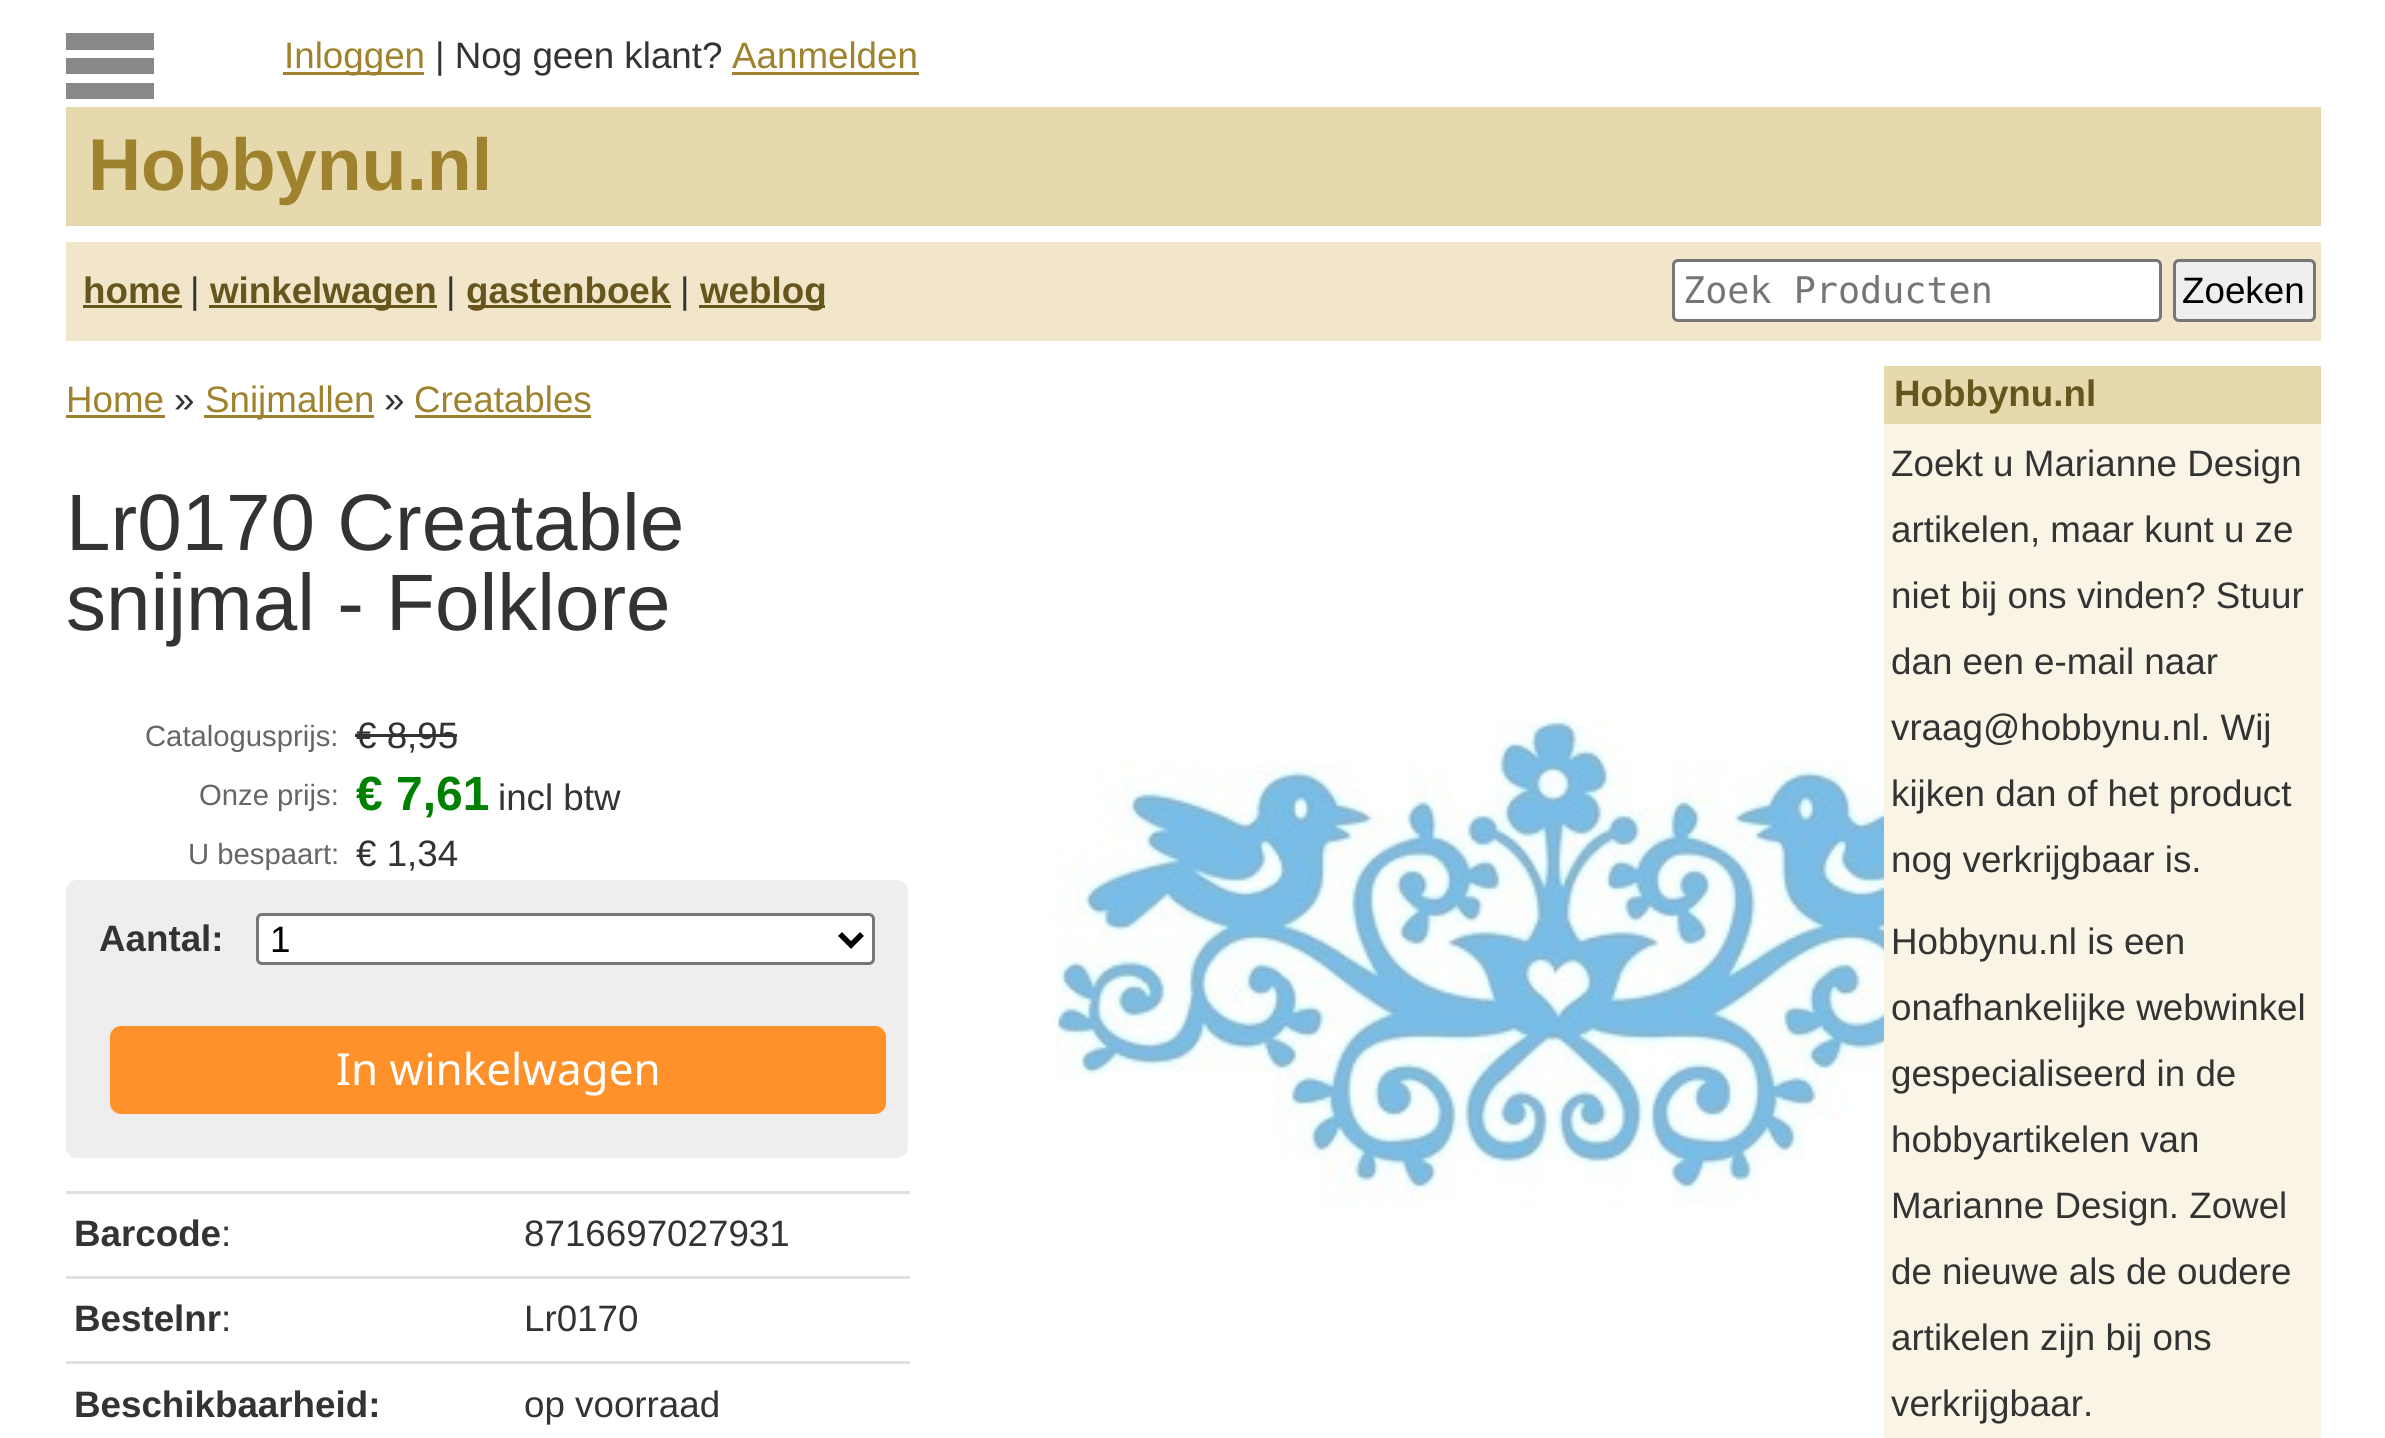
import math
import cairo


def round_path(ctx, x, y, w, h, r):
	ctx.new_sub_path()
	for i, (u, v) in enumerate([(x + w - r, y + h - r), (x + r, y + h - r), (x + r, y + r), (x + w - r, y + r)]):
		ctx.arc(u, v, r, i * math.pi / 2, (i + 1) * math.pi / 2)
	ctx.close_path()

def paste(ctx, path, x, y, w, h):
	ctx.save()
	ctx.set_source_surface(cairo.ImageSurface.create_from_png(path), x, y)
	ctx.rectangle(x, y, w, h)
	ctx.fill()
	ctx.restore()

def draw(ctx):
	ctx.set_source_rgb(1, 1, 1)
	ctx.paint()
	ctx.set_source_rgb(0.533, 0.533, 0.533)
	ctx.rectangle(66, 33, 88, 17)
	ctx.rectangle(66, 58, 88, 16)
	ctx.rectangle(66, 83, 88, 16)
	ctx.fill()
	ctx.set_source_rgb(0.624, 0.51, 0.176)
	ctx.rectangle(283, 72, 141, 3)
	ctx.fill()
	ctx.select_font_face('Liberation Sans')
	ctx.set_font_size(36.75)
	ctx.move_to(284, 68)
	ctx.show_text('Inloggen')
	ctx.set_source_rgb(0.2, 0.2, 0.2)
	ctx.move_to(435, 68)
	ctx.show_text('| Nog geen klant?')
	ctx.set_source_rgb(0.624, 0.51, 0.176)
	ctx.move_to(732, 68)
	ctx.show_text('Aanmelden')
	ctx.rectangle(732, 72, 187, 3)
	ctx.fill()
	ctx.set_source_rgb(0.906, 0.851, 0.682)
	ctx.rectangle(66, 107, 2255, 119)
	ctx.fill()
	ctx.select_font_face('Liberation Sans', cairo.FONT_SLANT_NORMAL, cairo.FONT_WEIGHT_BOLD)
	ctx.set_font_size(73.5)
	ctx.set_source_rgb(0.624, 0.51, 0.176)
	ctx.move_to(88, 190)
	ctx.show_text('Hobbynu.nl')
	ctx.set_source_rgb(0.945, 0.902, 0.788)
	ctx.rectangle(66, 242, 2255, 99)
	ctx.fill()
	ctx.set_font_size(36.75)
	ctx.set_source_rgb(0.4, 0.337, 0.118)
	ctx.move_to(83, 303)
	ctx.show_text('home')
	ctx.rectangle(83, 305, 99, 3)
	ctx.fill()
	ctx.select_font_face('Liberation Sans')
	ctx.set_source_rgb(0.2, 0.2, 0.2)
	ctx.move_to(190, 303)
	ctx.show_text('|')
	ctx.set_source_rgb(0.4, 0.337, 0.118)
	ctx.rectangle(209, 305, 228, 3)
	ctx.fill()
	ctx.select_font_face('Liberation Sans', cairo.FONT_SLANT_NORMAL, cairo.FONT_WEIGHT_BOLD)
	ctx.move_to(210, 303)
	ctx.show_text('winkelwagen')
	ctx.select_font_face('Liberation Sans')
	ctx.set_source_rgb(0.2, 0.2, 0.2)
	ctx.move_to(446, 303)
	ctx.show_text('|')
	ctx.set_source_rgb(0.4, 0.337, 0.118)
	ctx.rectangle(468, 305, 203, 3)
	ctx.fill()
	ctx.select_font_face('Liberation Sans', cairo.FONT_SLANT_NORMAL, cairo.FONT_WEIGHT_BOLD)
	ctx.move_to(466, 303)
	ctx.show_text('gastenboek')
	ctx.select_font_face('Liberation Sans')
	ctx.set_source_rgb(0.2, 0.2, 0.2)
	ctx.move_to(680, 303)
	ctx.show_text('|')
	ctx.set_source_rgb(0.4, 0.337, 0.118)
	ctx.rectangle(699, 305, 126, 3)
	ctx.fill()
	ctx.select_font_face('Liberation Sans', cairo.FONT_SLANT_NORMAL, cairo.FONT_WEIGHT_BOLD)
	ctx.move_to(700, 303)
	ctx.show_text('weblog')
	ctx.set_source_rgb(1, 1, 1)
	round_path(ctx, 1673.5, 260.5, 487, 60, 4.5)
	ctx.fill_preserve()
	ctx.set_source_rgb(0.463, 0.463, 0.463)
	ctx.set_line_width(3)
	ctx.stroke()
	ctx.select_font_face('DejaVu Sans Mono')
	ctx.set_source_rgb(0.459, 0.459, 0.459)
	ctx.move_to(1683, 303)
	ctx.show_text('Zoek Producten')
	ctx.set_source_rgb(0.937, 0.937, 0.937)
	round_path(ctx, 2174.5, 260.5, 140, 60, 4.5)
	ctx.fill_preserve()
	ctx.set_source_rgb(0.463, 0.463, 0.463)
	ctx.stroke()
	ctx.select_font_face('Liberation Sans')
	ctx.set_source_rgb(0, 0, 0)
	ctx.move_to(2182, 303)
	ctx.show_text('Zoeken')
	ctx.set_source_rgb(0.624, 0.51, 0.176)
	ctx.move_to(66, 412)
	ctx.show_text('Home')
	ctx.rectangle(66, 415, 99, 3)
	ctx.fill()
	ctx.set_source_rgb(0.2, 0.2, 0.2)
	ctx.move_to(174, 412)
	ctx.show_text('»')
	ctx.set_source_rgb(0.624, 0.51, 0.176)
	ctx.rectangle(204, 415, 170, 3)
	ctx.fill()
	ctx.move_to(205, 412)
	ctx.show_text('Snijmallen')
	ctx.set_source_rgb(0.2, 0.2, 0.2)
	ctx.move_to(384, 412)
	ctx.show_text('»')
	ctx.set_source_rgb(0.624, 0.51, 0.176)
	ctx.move_to(414, 412)
	ctx.show_text('Creatables')
	ctx.rectangle(415, 415, 176, 3)
	ctx.fill()
	ctx.set_font_size(80)
	ctx.set_source_rgb(0.2, 0.2, 0.2)
	ctx.move_to(66, 550)
	ctx.show_text('Lr0170 Creatable')
	ctx.move_to(66, 630)
	ctx.show_text('snijmal - Folklore')
	ctx.set_font_size(29.25)
	ctx.set_source_rgb(0.4, 0.4, 0.4)
	ctx.move_to(145, 746)
	ctx.show_text('Catalogusprijs:')
	ctx.set_font_size(36.75)
	ctx.set_source_rgb(0.2, 0.2, 0.2)
	ctx.move_to(356, 748)
	ctx.show_text('€ 8,95')
	ctx.rectangle(355, 734, 102, 3)
	ctx.fill()
	ctx.set_font_size(29.25)
	ctx.set_source_rgb(0.4, 0.4, 0.4)
	ctx.move_to(199, 805)
	ctx.show_text('Onze prijs:')
	ctx.select_font_face('Liberation Sans', cairo.FONT_SLANT_NORMAL, cairo.FONT_WEIGHT_BOLD)
	ctx.set_font_size(48)
	ctx.set_source_rgb(0, 0.502, 0)
	ctx.move_to(356, 810)
	ctx.show_text('€ 7,61')
	ctx.select_font_face('Liberation Sans')
	ctx.set_font_size(36.75)
	ctx.set_source_rgb(0.2, 0.2, 0.2)
	ctx.move_to(498, 810)
	ctx.show_text('incl btw')
	ctx.set_font_size(29.25)
	ctx.set_source_rgb(0.4, 0.4, 0.4)
	ctx.move_to(188, 864)
	ctx.show_text('U bespaart:')
	ctx.set_font_size(36.75)
	ctx.set_source_rgb(0.2, 0.2, 0.2)
	ctx.move_to(356, 866)
	ctx.show_text('€ 1,34')
	ctx.set_source_rgb(0.933, 0.933, 0.933)
	round_path(ctx, 66, 880, 842, 278, 11)
	ctx.fill()
	ctx.select_font_face('Liberation Sans', cairo.FONT_SLANT_NORMAL, cairo.FONT_WEIGHT_BOLD)
	ctx.set_source_rgb(0.2, 0.2, 0.2)
	ctx.move_to(99, 951)
	ctx.show_text('Aantal:')
	ctx.set_source_rgb(1, 1, 1)
	round_path(ctx, 257.5, 914.5, 616, 49, 4.5)
	ctx.fill_preserve()
	ctx.set_source_rgb(0.463, 0.463, 0.463)
	ctx.stroke()
	ctx.new_path()
	ctx.move_to(840, 934)
	ctx.line_to(851, 945)
	ctx.line_to(862, 934)
	ctx.set_source_rgb(0, 0, 0)
	ctx.set_line_width(5.5)
	ctx.stroke()
	ctx.select_font_face('Liberation Sans')
	ctx.move_to(270, 952)
	ctx.show_text('1')
	ctx.set_source_rgb(1, 0.569, 0.165)
	round_path(ctx, 110, 1026, 776, 88, 11)
	ctx.fill()
	ctx.select_font_face('Noto Sans')
	ctx.set_font_size(44)
	ctx.set_source_rgb(1, 1, 1)
	ctx.move_to(336, 1085)
	ctx.show_text('In winkelwagen')
	ctx.select_font_face('Liberation Sans', cairo.FONT_SLANT_NORMAL, cairo.FONT_WEIGHT_BOLD)
	ctx.set_font_size(36.75)
	ctx.set_source_rgb(0.2, 0.2, 0.2)
	ctx.move_to(74, 1246)
	ctx.show_text('Barcode')
	ctx.select_font_face('Liberation Sans')
	ctx.move_to(221, 1246)
	ctx.show_text(':')
	ctx.set_source_rgb(0.878, 0.878, 0.878)
	ctx.rectangle(66, 1191, 844, 3)
	ctx.fill()
	ctx.set_source_rgb(0.2, 0.2, 0.2)
	ctx.move_to(524, 1246)
	ctx.show_text('8716697027931')
	ctx.select_font_face('Liberation Sans', cairo.FONT_SLANT_NORMAL, cairo.FONT_WEIGHT_BOLD)
	ctx.move_to(74, 1331)
	ctx.show_text('Bestelnr')
	ctx.select_font_face('Liberation Sans')
	ctx.move_to(221, 1331)
	ctx.show_text(':')
	ctx.set_source_rgb(0.878, 0.878, 0.878)
	ctx.rectangle(66, 1276, 844, 3)
	ctx.fill()
	ctx.set_source_rgb(0.2, 0.2, 0.2)
	ctx.move_to(524, 1331)
	ctx.show_text('Lr0170')
	ctx.select_font_face('Liberation Sans', cairo.FONT_SLANT_NORMAL, cairo.FONT_WEIGHT_BOLD)
	ctx.move_to(74, 1417)
	ctx.show_text('Beschikbaarheid:')
	ctx.set_source_rgb(0.878, 0.878, 0.878)
	ctx.rectangle(66, 1361, 844, 3)
	ctx.fill()
	ctx.select_font_face('Liberation Sans')
	ctx.set_source_rgb(0.2, 0.2, 0.2)
	ctx.move_to(524, 1417)
	ctx.show_text('op voorraad')
	paste(ctx, 'media/1.png', 1053, 717, 831, 488)
	ctx.set_source_rgb(0.906, 0.851, 0.682)
	ctx.rectangle(1884, 366, 437, 58)
	ctx.fill()
	ctx.select_font_face('Liberation Sans', cairo.FONT_SLANT_NORMAL, cairo.FONT_WEIGHT_BOLD)
	ctx.set_source_rgb(0.4, 0.337, 0.118)
	ctx.move_to(1894, 406)
	ctx.show_text('Hobbynu.nl')
	ctx.set_source_rgb(0.973, 0.957, 0.898)
	ctx.rectangle(1884, 424, 437, 1014)
	ctx.fill()
	ctx.select_font_face('Liberation Sans')
	ctx.set_source_rgb(0.2, 0.2, 0.2)
	for x, y, s in [
		(1891, 476, 'Zoekt u Marianne Design'),
		(1891, 542, 'artikelen, maar kunt u ze'),
		(1891, 608, 'niet bij ons vinden? Stuur'),
		(1891, 674, 'dan een e-mail naar'),
		(1891, 740, 'vraag@hobbynu.nl. Wij'),
		(1891, 806, 'kijken dan of het product'),
		(1891, 872, 'nog verkrijgbaar is.'),
		(1891, 954, 'Hobbynu.nl is een'),
		(1891, 1020, 'onafhankelijke webwinkel'),
		(1891, 1086, 'gespecialiseerd in de'),
		(1891, 1152, 'hobbyartikelen van'),
		(1891, 1218, 'Marianne Design. Zowel'),
		(1891, 1284, 'de nieuwe als de oudere'),
		(1891, 1350, 'artikelen zijn bij ons'),
		(1891, 1416, 'verkrijgbaar.'),
	]:
		ctx.move_to(x, y)
		ctx.show_text(s)


surface = cairo.ImageSurface(cairo.FORMAT_RGB24, 2385, 1438)
ctx = cairo.Context(surface)
options = cairo.FontOptions()
options.set_hint_metrics(cairo.HINT_METRICS_OFF)
options.set_hint_style(cairo.HINT_STYLE_NONE)
ctx.set_font_options(options)
ctx.set_miter_limit(4)
draw(ctx)
surface.write_to_png('image.png')
